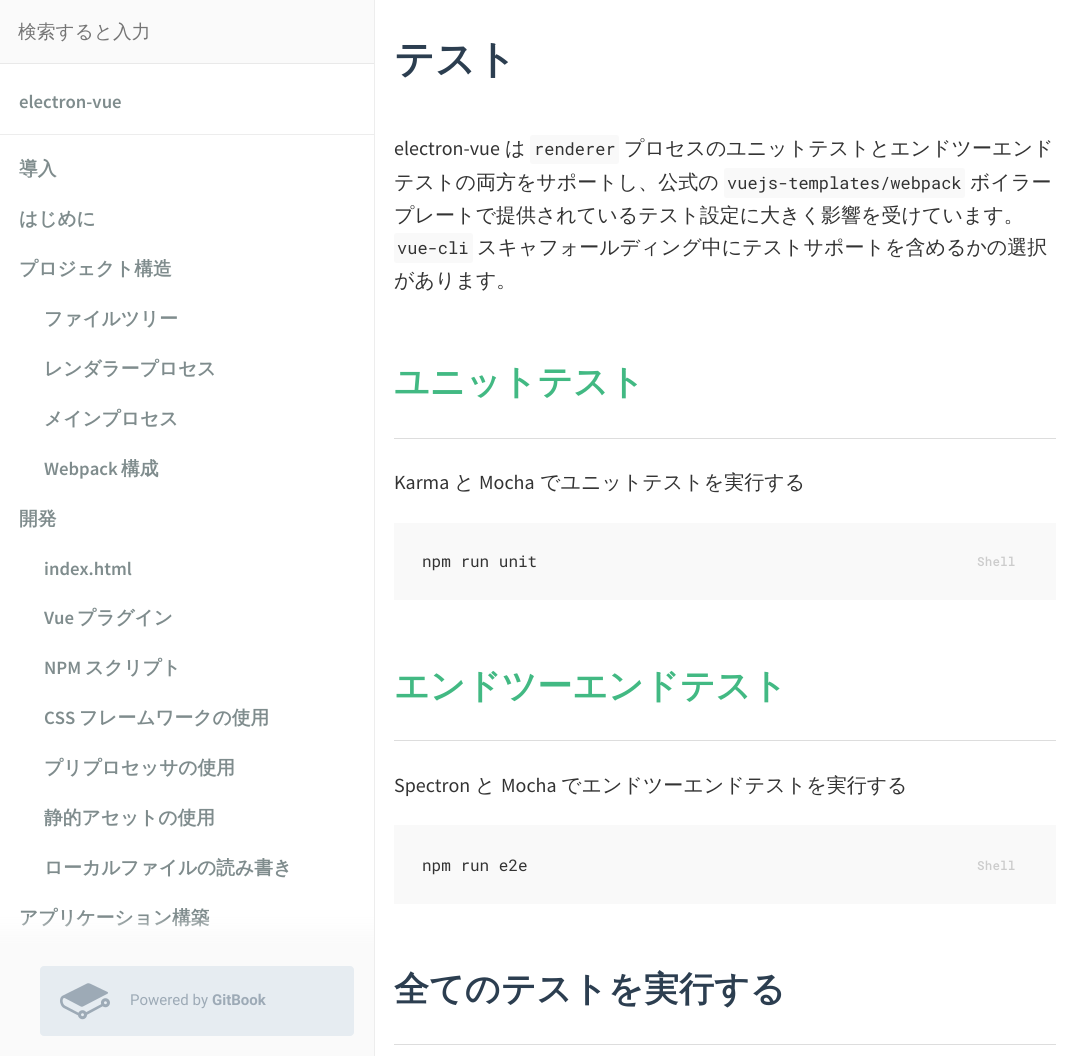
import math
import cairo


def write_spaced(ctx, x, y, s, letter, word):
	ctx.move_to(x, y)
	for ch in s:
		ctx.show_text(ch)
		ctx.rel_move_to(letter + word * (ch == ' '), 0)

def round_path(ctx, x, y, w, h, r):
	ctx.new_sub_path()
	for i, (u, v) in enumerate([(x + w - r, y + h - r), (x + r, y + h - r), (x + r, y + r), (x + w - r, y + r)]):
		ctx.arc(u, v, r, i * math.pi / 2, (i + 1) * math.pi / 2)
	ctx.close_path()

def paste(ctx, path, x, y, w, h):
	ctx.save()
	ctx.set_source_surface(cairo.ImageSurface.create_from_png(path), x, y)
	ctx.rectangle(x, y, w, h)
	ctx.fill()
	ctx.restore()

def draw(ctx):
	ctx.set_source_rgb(1, 1, 1)
	ctx.paint()
	ctx.set_source_rgb(0.929, 0.929, 0.929)
	ctx.rectangle(374, 0, 1, 1056)
	ctx.fill()
	ctx.set_source_rgb(0.98, 0.98, 0.98)
	ctx.rectangle(0, 0, 374, 63)
	ctx.fill()
	ctx.set_source_rgb(0.914, 0.914, 0.914)
	ctx.rectangle(0, 63, 374, 1)
	ctx.fill()
	ctx.select_font_face('WenQuanYi Zen Hei Medium')
	ctx.set_font_size(18.75)
	ctx.set_source_rgb(0.459, 0.459, 0.459)
	ctx.move_to(18, 38)
	ctx.show_text('検索すると入力')
	ctx.select_font_face('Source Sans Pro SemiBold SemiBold')
	ctx.set_source_rgb(0.498, 0.549, 0.553)
	ctx.move_to(19, 108)
	ctx.show_text('electron-vue')
	ctx.set_source_rgb(0.929, 0.929, 0.929)
	ctx.rectangle(0, 134, 374, 1)
	ctx.fill()
	ctx.select_font_face('WenQuanYi Zen Hei', cairo.FONT_SLANT_NORMAL, cairo.FONT_WEIGHT_BOLD)
	ctx.set_source_rgb(0.498, 0.549, 0.553)
	for x, y, s in [
		(19, 175, '導入'),
		(19, 225, 'はじめに'),
		(19, 275, 'プロジェクト構造'),
		(44, 325, 'ファイルツリー'),
		(44, 375, 'レンダラープロセス'),
		(44, 425, 'メインプロセス'),
	]:
		ctx.move_to(x, y)
		ctx.show_text(s)
	ctx.select_font_face('Source Sans Pro SemiBold SemiBold')
	ctx.move_to(44, 475)
	ctx.show_text('Webpack')
	ctx.select_font_face('WenQuanYi Zen Hei', cairo.FONT_SLANT_NORMAL, cairo.FONT_WEIGHT_BOLD)
	ctx.move_to(121, 475)
	ctx.show_text('構成')
	ctx.move_to(19, 525)
	ctx.show_text('開発')
	ctx.select_font_face('Source Sans Pro SemiBold SemiBold')
	ctx.move_to(44, 575)
	ctx.show_text('index.html')
	ctx.move_to(44, 624)
	ctx.show_text('Vue')
	ctx.select_font_face('WenQuanYi Zen Hei', cairo.FONT_SLANT_NORMAL, cairo.FONT_WEIGHT_BOLD)
	ctx.move_to(77, 624)
	ctx.show_text('プラグイン')
	ctx.select_font_face('Source Sans Pro SemiBold SemiBold')
	ctx.move_to(44, 674)
	ctx.show_text('NPM')
	ctx.select_font_face('WenQuanYi Zen Hei', cairo.FONT_SLANT_NORMAL, cairo.FONT_WEIGHT_BOLD)
	ctx.move_to(85, 674)
	ctx.show_text('スクリプト')
	ctx.select_font_face('Source Sans Pro SemiBold SemiBold')
	ctx.move_to(44, 724)
	ctx.show_text('CSS')
	ctx.select_font_face('WenQuanYi Zen Hei', cairo.FONT_SLANT_NORMAL, cairo.FONT_WEIGHT_BOLD)
	for x, y, s in [
		(79, 724, 'フレームワークの使用'),
		(44, 774, 'プリプロセッサの使用'),
		(44, 824, '静的アセットの使用'),
		(44, 874, 'ローカルファイルの読み書き'),
		(19, 924, 'アプリケーション構築'),
	]:
		ctx.move_to(x, y)
		ctx.show_text(s)
	ctx.set_source_rgb(0.98, 0.98, 0.98)
	ctx.rectangle(0, 946, 374, 110)
	ctx.fill()
	gradient = cairo.LinearGradient(187, 916, 187, 946)
	gradient.add_color_stop_rgba(0, 0.98, 0.98, 0.98, 0)
	gradient.add_color_stop_rgba(1, 0.98, 0.98, 0.98, 1)
	ctx.set_source(gradient)
	ctx.rectangle(0, 917, 374, 29)
	ctx.fill()
	ctx.set_source_rgb(0.902, 0.925, 0.945)
	round_path(ctx, 40, 966, 314, 70, 4)
	ctx.fill()
	paste(ctx, 'media/1.png', 60, 983, 50, 37)
	ctx.select_font_face('Roboto')
	ctx.set_font_size(15)
	ctx.set_source_rgb(0.616, 0.667, 0.714)
	ctx.move_to(130, 1005)
	ctx.show_text('Powered by')
	ctx.select_font_face('Roboto', cairo.FONT_SLANT_NORMAL, cairo.FONT_WEIGHT_BOLD)
	ctx.move_to(212, 1005)
	ctx.show_text('GitBook')
	ctx.select_font_face('WenQuanYi Zen Hei', cairo.FONT_SLANT_NORMAL, cairo.FONT_WEIGHT_BOLD)
	ctx.set_font_size(40)
	ctx.set_source_rgb(0.173, 0.243, 0.314)
	ctx.move_to(394, 73)
	ctx.show_text('テスト')
	ctx.select_font_face('Source Sans Pro')
	ctx.set_font_size(20)
	ctx.set_source_rgb(0.2, 0.2, 0.2)
	ctx.move_to(394, 155)
	ctx.show_text('electron-vue')
	ctx.select_font_face('WenQuanYi Zen Hei Medium')
	ctx.move_to(505, 155)
	ctx.show_text('は')
	ctx.set_source_rgb(0.973, 0.973, 0.973)
	round_path(ctx, 530, 135, 89, 29, 2.5)
	ctx.fill()
	ctx.select_font_face('Roboto Mono')
	ctx.set_font_size(17)
	ctx.set_source_rgb(0.2, 0.2, 0.2)
	ctx.move_to(534, 155)
	ctx.show_text('renderer')
	ctx.select_font_face('WenQuanYi Zen Hei Medium')
	ctx.set_font_size(20)
	ctx.move_to(624, 155)
	ctx.show_text('プロセスのユニットテストとエンドツーエンド')
	ctx.move_to(394, 189)
	ctx.show_text('テストの両方をサポートし、公式の')
	ctx.set_source_rgb(0.973, 0.973, 0.973)
	round_path(ctx, 724, 168, 241, 30, 2.5)
	ctx.fill()
	ctx.select_font_face('Roboto Mono')
	ctx.set_font_size(17)
	ctx.set_source_rgb(0.2, 0.2, 0.2)
	ctx.move_to(727, 189)
	ctx.show_text('vuejs-templates/webpack')
	ctx.select_font_face('WenQuanYi Zen Hei Medium')
	ctx.set_font_size(20)
	ctx.move_to(970, 189)
	ctx.show_text('ボイラー')
	ctx.move_to(394, 222)
	ctx.show_text('プレートで提供されているテスト設定に大きく影響を受けています。')
	ctx.set_source_rgb(0.973, 0.973, 0.973)
	round_path(ctx, 394, 233, 79, 30, 2.5)
	ctx.fill()
	ctx.select_font_face('Roboto Mono')
	ctx.set_font_size(17)
	ctx.set_source_rgb(0.2, 0.2, 0.2)
	ctx.move_to(397, 254)
	ctx.show_text('vue-cli')
	ctx.select_font_face('WenQuanYi Zen Hei Medium')
	ctx.set_font_size(20)
	ctx.move_to(477, 254)
	ctx.show_text('スキャフォールディング中にテストサポートを含めるかの選択')
	ctx.move_to(394, 287)
	ctx.show_text('があります。')
	ctx.set_source_rgb(0.867, 0.867, 0.867)
	ctx.rectangle(394, 438, 662, 1)
	ctx.fill()
	ctx.select_font_face('WenQuanYi Zen Hei', cairo.FONT_SLANT_NORMAL, cairo.FONT_WEIGHT_BOLD)
	ctx.set_font_size(35)
	ctx.set_source_rgb(0.259, 0.725, 0.514)
	ctx.move_to(394, 394)
	ctx.show_text('ユニットテスト')
	ctx.select_font_face('Source Sans Pro')
	ctx.set_font_size(20)
	ctx.set_source_rgb(0.2, 0.2, 0.2)
	ctx.move_to(394, 489)
	ctx.show_text('Karma')
	ctx.select_font_face('WenQuanYi Zen Hei Medium')
	ctx.move_to(454, 489)
	ctx.show_text('と')
	ctx.select_font_face('Source Sans Pro')
	ctx.move_to(479, 489)
	ctx.show_text('Mocha')
	ctx.select_font_face('WenQuanYi Zen Hei Medium')
	ctx.move_to(540, 489)
	ctx.show_text('でユニットテストを実行する')
	ctx.set_source_rgb(0.973, 0.973, 0.973)
	ctx.rectangle(394, 523, 662, 77)
	ctx.fill()
	ctx.select_font_face('Roboto Mono')
	ctx.set_font_size(16)
	ctx.set_source_rgb(0.2, 0.2, 0.2)
	ctx.move_to(422, 567)
	ctx.show_text('npm run unit')
	ctx.select_font_face('Roboto Mono', cairo.FONT_SLANT_NORMAL, cairo.FONT_WEIGHT_BOLD)
	ctx.set_font_size(12)
	ctx.set_source_rgb(0.8, 0.8, 0.8)
	write_spaced(ctx, 977, 566, 'Shell', 0.5, 0)
	ctx.set_source_rgb(0.867, 0.867, 0.867)
	ctx.rectangle(394, 740, 662, 1)
	ctx.fill()
	ctx.select_font_face('WenQuanYi Zen Hei', cairo.FONT_SLANT_NORMAL, cairo.FONT_WEIGHT_BOLD)
	ctx.set_font_size(35)
	ctx.set_source_rgb(0.259, 0.725, 0.514)
	ctx.move_to(394, 698)
	ctx.show_text('エンドツーエンドテスト')
	ctx.select_font_face('Source Sans Pro')
	ctx.set_font_size(20)
	ctx.set_source_rgb(0.2, 0.2, 0.2)
	ctx.move_to(394, 792)
	ctx.show_text('Spectron')
	ctx.select_font_face('WenQuanYi Zen Hei Medium')
	ctx.move_to(475, 792)
	ctx.show_text('と')
	ctx.select_font_face('Source Sans Pro')
	ctx.move_to(501, 792)
	ctx.show_text('Mocha')
	ctx.select_font_face('WenQuanYi Zen Hei Medium')
	ctx.move_to(561, 792)
	ctx.show_text('でエンドツーエンドテストを実行する')
	ctx.set_source_rgb(0.973, 0.973, 0.973)
	ctx.rectangle(394, 825, 662, 79)
	ctx.fill()
	ctx.select_font_face('Roboto Mono')
	ctx.set_font_size(16)
	ctx.set_source_rgb(0.2, 0.2, 0.2)
	ctx.move_to(422, 871)
	ctx.show_text('npm run e2e')
	ctx.select_font_face('Roboto Mono', cairo.FONT_SLANT_NORMAL, cairo.FONT_WEIGHT_BOLD)
	ctx.set_font_size(12)
	ctx.set_source_rgb(0.8, 0.8, 0.8)
	write_spaced(ctx, 977, 870, 'Shell', 0.5, 0)
	ctx.set_source_rgb(0.867, 0.867, 0.867)
	ctx.rectangle(394, 1044, 662, 1)
	ctx.fill()
	ctx.select_font_face('WenQuanYi Zen Hei', cairo.FONT_SLANT_NORMAL, cairo.FONT_WEIGHT_BOLD)
	ctx.set_font_size(35)
	ctx.set_source_rgb(0.173, 0.243, 0.314)
	ctx.move_to(394, 1001)
	ctx.show_text('全てのテストを実行する')


surface = cairo.ImageSurface(cairo.FORMAT_RGB24, 1074, 1056)
ctx = cairo.Context(surface)
options = cairo.FontOptions()
options.set_hint_metrics(cairo.HINT_METRICS_OFF)
options.set_hint_style(cairo.HINT_STYLE_NONE)
ctx.set_font_options(options)
ctx.set_miter_limit(4)
draw(ctx)
surface.write_to_png('image.png')
